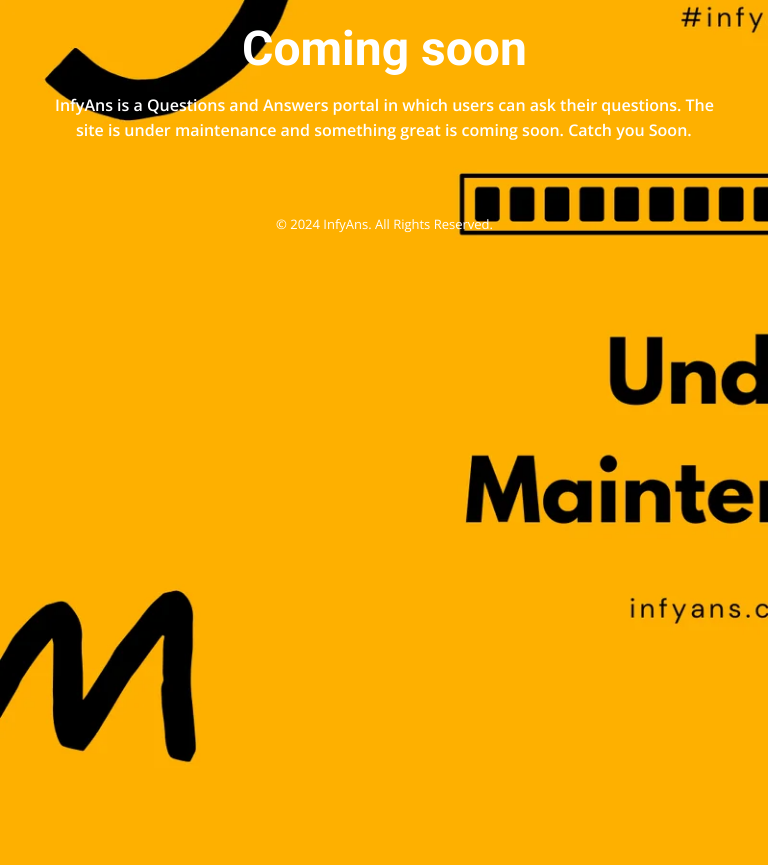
import math
import cairo


def paste(ctx, path, x, y, w, h):
	ctx.save()
	ctx.set_source_surface(cairo.ImageSurface.create_from_png(path), x, y)
	ctx.rectangle(x, y, w, h)
	ctx.fill()
	ctx.restore()

def draw(ctx):
	ctx.set_source_rgb(1, 1, 1)
	ctx.paint()
	paste(ctx, 'media/1.png', 0, 0, 768, 865)
	ctx.select_font_face('Roboto', cairo.FONT_SLANT_NORMAL, cairo.FONT_WEIGHT_BOLD)
	ctx.set_font_size(48)
	ctx.set_source_rgb(1, 1, 1)
	ctx.move_to(242, 65)
	ctx.show_text('Coming soon')
	ctx.select_font_face('Open Sans SemiBold')
	ctx.set_font_size(16)
	ctx.move_to(55, 111)
	ctx.show_text('InfyAns is a Questions and Answers portal in which users can ask their questions. The')
	ctx.move_to(76, 136)
	ctx.show_text('site is under maintenance and something great is coming soon. Catch you Soon.')
	ctx.select_font_face('Open Sans')
	ctx.set_font_size(13)
	ctx.move_to(276, 229)
	ctx.show_text('© 2024 InfyAns. All Rights Reserved.')


surface = cairo.ImageSurface(cairo.FORMAT_RGB24, 768, 865)
ctx = cairo.Context(surface)
options = cairo.FontOptions()
options.set_hint_metrics(cairo.HINT_METRICS_OFF)
options.set_hint_style(cairo.HINT_STYLE_NONE)
ctx.set_font_options(options)
ctx.set_miter_limit(4)
draw(ctx)
surface.write_to_png('image.png')
